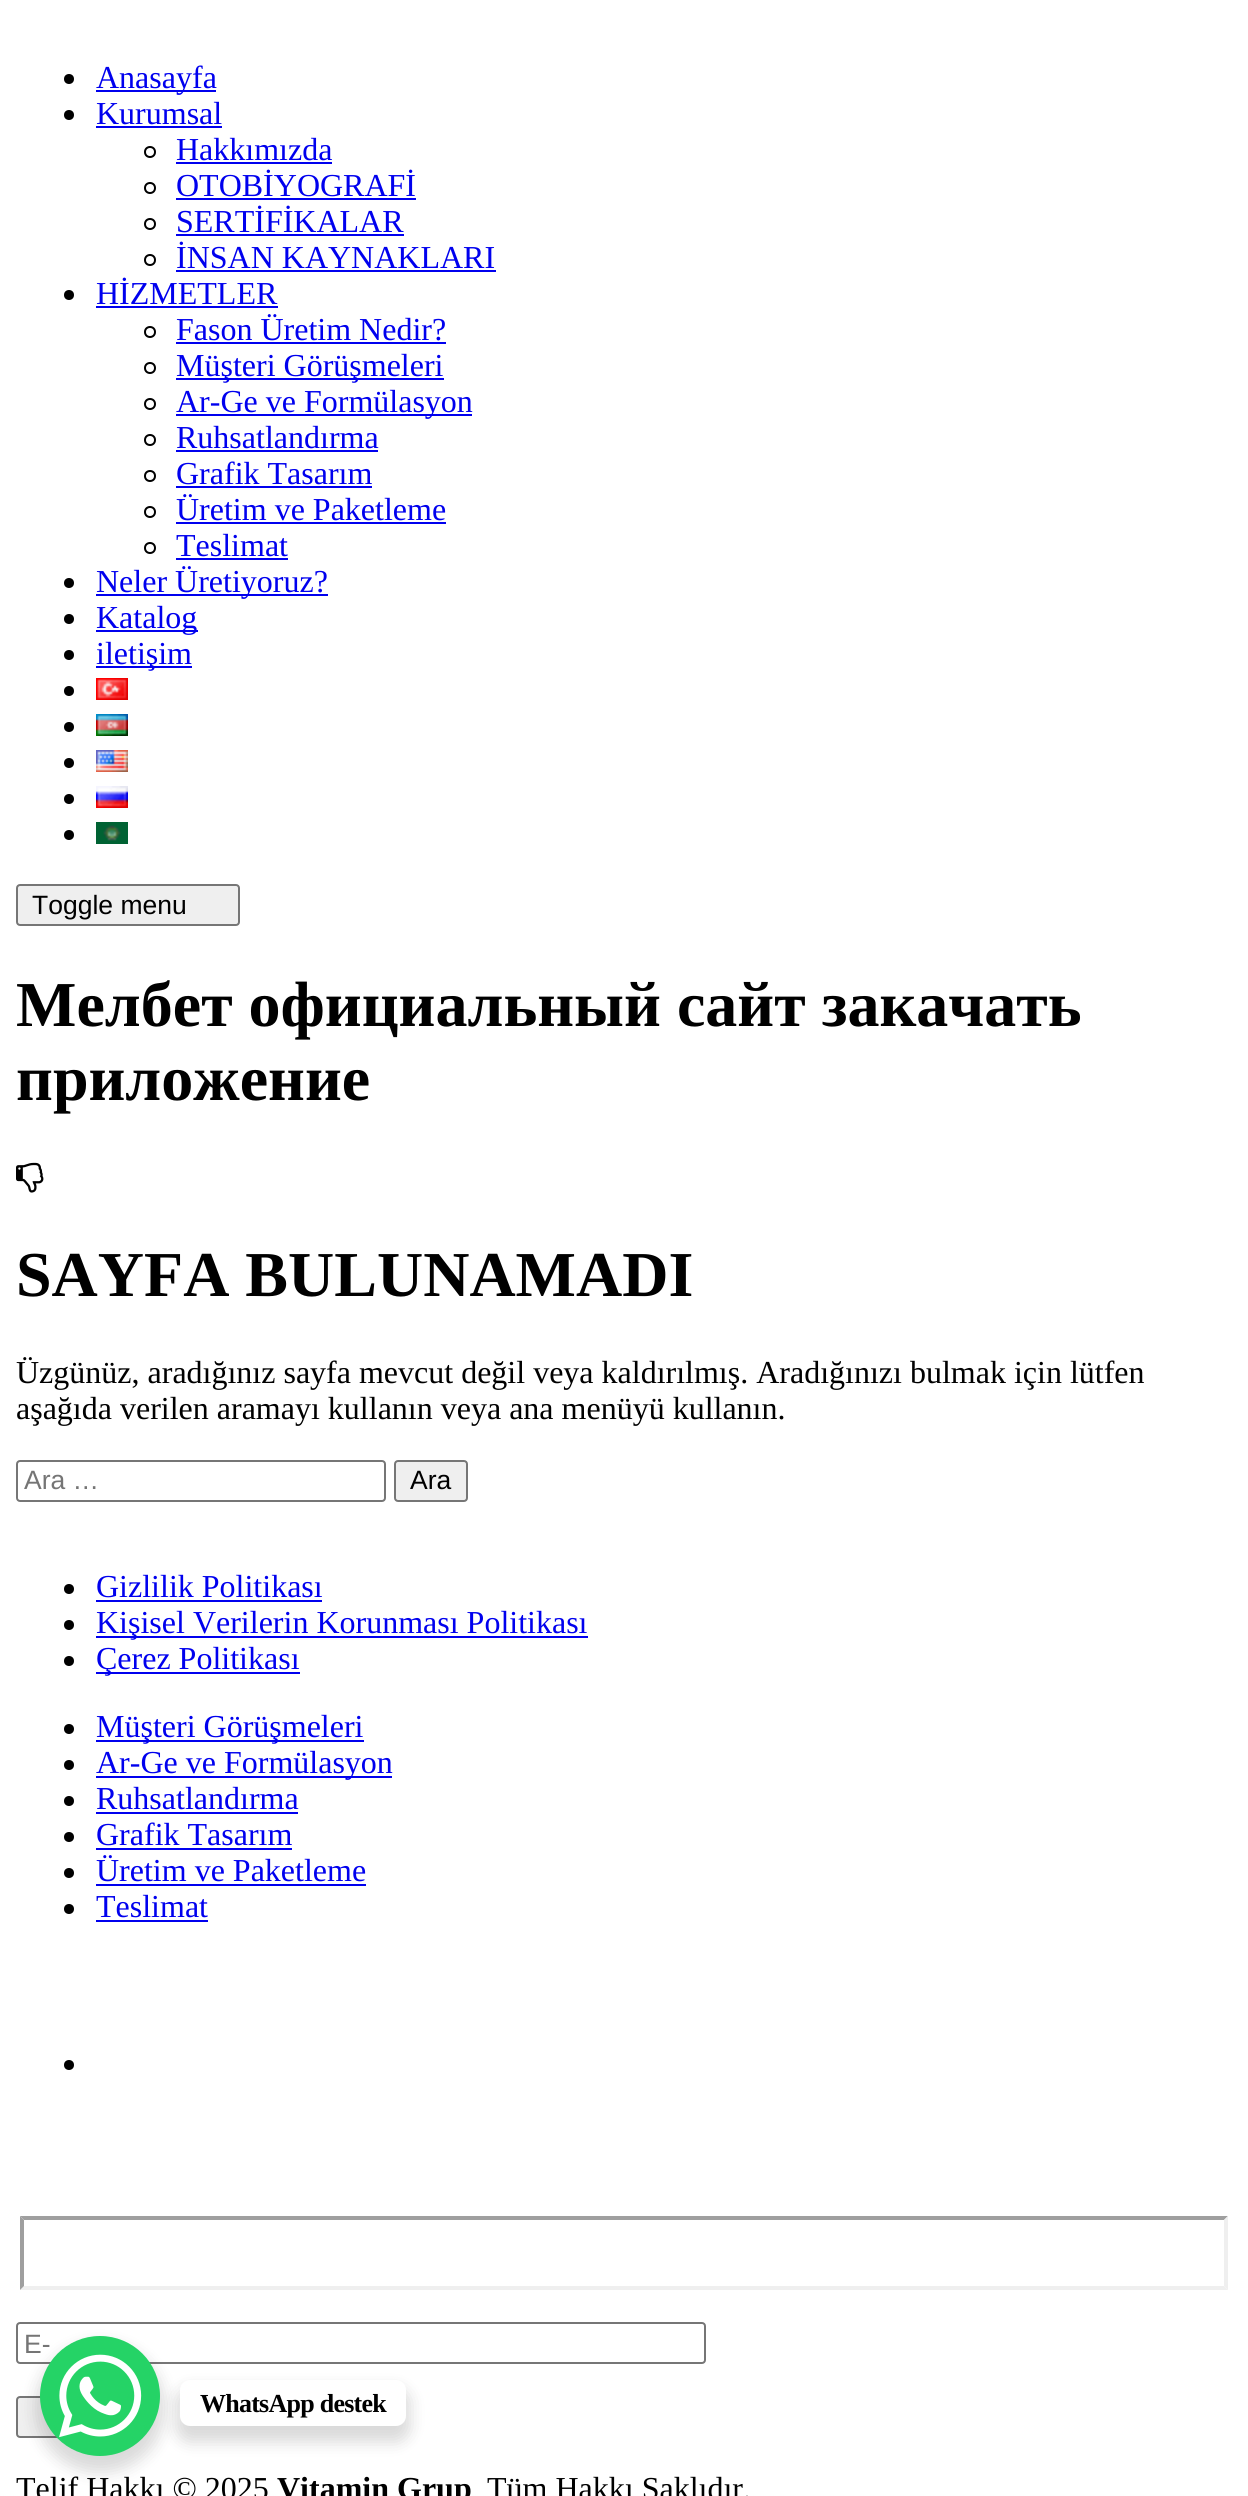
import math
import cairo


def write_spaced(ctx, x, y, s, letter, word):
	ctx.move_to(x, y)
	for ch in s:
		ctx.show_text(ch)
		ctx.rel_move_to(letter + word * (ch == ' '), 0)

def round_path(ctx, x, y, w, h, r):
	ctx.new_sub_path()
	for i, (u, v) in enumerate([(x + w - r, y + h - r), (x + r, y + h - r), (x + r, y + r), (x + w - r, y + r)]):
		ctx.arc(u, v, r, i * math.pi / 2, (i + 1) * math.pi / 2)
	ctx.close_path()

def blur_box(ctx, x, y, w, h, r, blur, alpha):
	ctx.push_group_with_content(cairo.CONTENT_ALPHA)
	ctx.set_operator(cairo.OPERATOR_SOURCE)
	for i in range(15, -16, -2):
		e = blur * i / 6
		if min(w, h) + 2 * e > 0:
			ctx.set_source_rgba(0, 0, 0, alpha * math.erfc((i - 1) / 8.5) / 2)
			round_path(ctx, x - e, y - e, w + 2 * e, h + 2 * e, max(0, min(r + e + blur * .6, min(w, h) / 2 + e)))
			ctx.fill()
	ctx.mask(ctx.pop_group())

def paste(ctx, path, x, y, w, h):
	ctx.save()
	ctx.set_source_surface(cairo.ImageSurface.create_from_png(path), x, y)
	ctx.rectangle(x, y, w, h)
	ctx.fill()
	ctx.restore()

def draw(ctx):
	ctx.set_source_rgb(1, 1, 1)
	ctx.paint()
	ctx.set_source_rgb(0, 0, 0)
	ctx.arc(69, 79, 5, 0, 2 * math.pi)
	ctx.fill()
	ctx.set_source_rgb(0, 0, 0.933)
	ctx.rectangle(96, 90, 120, 2)
	ctx.fill()
	ctx.select_font_face('Liberation Serif')
	ctx.set_font_size(32)
	ctx.move_to(96, 88)
	ctx.show_text('Anasayfa')
	ctx.set_source_rgb(0, 0, 0)
	ctx.new_path()
	ctx.arc(69, 115, 5, 0, 2 * math.pi)
	ctx.fill()
	ctx.set_source_rgb(0, 0, 0.933)
	ctx.move_to(96, 124)
	ctx.show_text('Kurumsal')
	ctx.rectangle(96, 126, 126, 2)
	ctx.fill()
	ctx.arc(150, 152, 5, 0, 2 * math.pi)
	ctx.set_source_rgb(0, 0, 0)
	ctx.stroke()
	ctx.set_source_rgb(0, 0, 0.933)
	ctx.move_to(176, 160)
	ctx.show_text('Hakkımızda')
	ctx.rectangle(176, 162, 156, 2)
	ctx.fill()
	ctx.arc(150, 188, 5, 0, 2 * math.pi)
	ctx.set_source_rgb(0, 0, 0)
	ctx.stroke()
	ctx.set_source_rgb(0, 0, 0.933)
	ctx.move_to(176, 196)
	ctx.show_text('OTOBİYOGRAFİ')
	ctx.rectangle(176, 198, 240, 2)
	ctx.fill()
	ctx.arc(150, 224, 5, 0, 2 * math.pi)
	ctx.set_source_rgb(0, 0, 0)
	ctx.stroke()
	ctx.set_source_rgb(0, 0, 0.933)
	ctx.move_to(176, 232)
	ctx.show_text('SERTİFİKALAR')
	ctx.rectangle(176, 234, 228, 2)
	ctx.fill()
	ctx.arc(150, 260, 5, 0, 2 * math.pi)
	ctx.set_source_rgb(0, 0, 0)
	ctx.stroke()
	ctx.set_source_rgb(0, 0, 0.933)
	ctx.move_to(176, 268)
	ctx.show_text('İNSAN KAYNAKLARI')
	ctx.rectangle(176, 270, 320, 2)
	ctx.fill()
	ctx.set_source_rgb(0, 0, 0)
	ctx.arc(69, 295, 5, 0, 2 * math.pi)
	ctx.fill()
	ctx.set_source_rgb(0, 0, 0.933)
	ctx.move_to(96, 304)
	ctx.show_text('HİZMETLER')
	ctx.rectangle(96, 306, 182, 2)
	ctx.fill()
	ctx.arc(150, 332, 5, 0, 2 * math.pi)
	ctx.set_source_rgb(0, 0, 0)
	ctx.stroke()
	ctx.set_source_rgb(0, 0, 0.933)
	ctx.move_to(176, 340)
	ctx.show_text('Fason Üretim Nedir?')
	ctx.rectangle(176, 342, 270, 2)
	ctx.fill()
	ctx.arc(150, 368, 5, 0, 2 * math.pi)
	ctx.set_source_rgb(0, 0, 0)
	ctx.stroke()
	ctx.set_source_rgb(0, 0, 0.933)
	ctx.rectangle(176, 378, 268, 2)
	ctx.fill()
	ctx.move_to(176, 376)
	ctx.show_text('Müşteri Görüşmeleri')
	ctx.new_path()
	ctx.arc(150, 404, 5, 0, 2 * math.pi)
	ctx.set_source_rgb(0, 0, 0)
	ctx.stroke()
	ctx.set_source_rgb(0, 0, 0.933)
	ctx.rectangle(176, 414, 296, 2)
	ctx.fill()
	ctx.move_to(176, 412)
	ctx.show_text('Ar-Ge ve Formülasyon')
	ctx.new_path()
	ctx.arc(150, 440, 5, 0, 2 * math.pi)
	ctx.set_source_rgb(0, 0, 0)
	ctx.stroke()
	ctx.set_source_rgb(0, 0, 0.933)
	ctx.move_to(176, 448)
	ctx.show_text('Ruhsatlandırma')
	ctx.rectangle(176, 450, 202, 2)
	ctx.fill()
	ctx.arc(150, 476, 5, 0, 2 * math.pi)
	ctx.set_source_rgb(0, 0, 0)
	ctx.stroke()
	ctx.set_source_rgb(0, 0, 0.933)
	ctx.move_to(176, 484)
	ctx.show_text('Grafik Tasarım')
	ctx.rectangle(176, 486, 196, 2)
	ctx.fill()
	ctx.arc(150, 512, 5, 0, 2 * math.pi)
	ctx.set_source_rgb(0, 0, 0)
	ctx.stroke()
	ctx.set_source_rgb(0, 0, 0.933)
	ctx.move_to(176, 520)
	ctx.show_text('Üretim ve Paketleme')
	ctx.rectangle(176, 522, 270, 2)
	ctx.fill()
	ctx.arc(150, 548, 5, 0, 2 * math.pi)
	ctx.set_source_rgb(0, 0, 0)
	ctx.stroke()
	ctx.set_source_rgb(0, 0, 0.933)
	ctx.move_to(176, 556)
	ctx.show_text('Teslimat')
	ctx.rectangle(176, 558, 112, 2)
	ctx.fill()
	ctx.set_source_rgb(0, 0, 0)
	ctx.arc(69, 583, 5, 0, 2 * math.pi)
	ctx.fill()
	ctx.set_source_rgb(0, 0, 0.933)
	ctx.rectangle(96, 594, 232, 2)
	ctx.fill()
	ctx.move_to(96, 592)
	ctx.show_text('Neler Üretiyoruz?')
	ctx.set_source_rgb(0, 0, 0)
	ctx.new_path()
	ctx.arc(69, 619, 5, 0, 2 * math.pi)
	ctx.fill()
	ctx.set_source_rgb(0, 0, 0.933)
	ctx.rectangle(96, 630, 102, 2)
	ctx.fill()
	ctx.move_to(96, 628)
	ctx.show_text('Katalog')
	ctx.set_source_rgb(0, 0, 0)
	ctx.new_path()
	ctx.arc(69, 655, 5, 0, 2 * math.pi)
	ctx.fill()
	ctx.set_source_rgb(0, 0, 0.933)
	ctx.rectangle(96, 666, 96, 2)
	ctx.fill()
	ctx.move_to(96, 664)
	ctx.show_text('iletişim')
	ctx.set_source_rgb(0, 0, 0)
	ctx.new_path()
	ctx.arc(69, 691, 5, 0, 2 * math.pi)
	ctx.fill()
	paste(ctx, 'media/1.png', 96, 678, 32, 22)
	ctx.arc(69, 727, 5, 0, 2 * math.pi)
	ctx.fill()
	paste(ctx, 'media/2.png', 96, 714, 32, 22)
	ctx.arc(69, 763, 5, 0, 2 * math.pi)
	ctx.fill()
	paste(ctx, 'media/3.png', 96, 750, 32, 22)
	ctx.arc(69, 799, 5, 0, 2 * math.pi)
	ctx.fill()
	paste(ctx, 'media/4.png', 96, 786, 32, 22)
	ctx.arc(69, 835, 5, 0, 2 * math.pi)
	ctx.fill()
	paste(ctx, 'media/5.png', 96, 822, 32, 22)
	ctx.set_source_rgb(0.937, 0.937, 0.937)
	round_path(ctx, 17, 885, 222, 40, 3)
	ctx.fill_preserve()
	ctx.set_source_rgb(0.463, 0.463, 0.463)
	ctx.stroke()
	ctx.select_font_face('Liberation Sans')
	ctx.set_font_size(26.5)
	ctx.set_source_rgb(0, 0, 0)
	ctx.move_to(32, 914)
	ctx.show_text('Toggle menu')
	ctx.select_font_face('Liberation Serif', cairo.FONT_SLANT_NORMAL, cairo.FONT_WEIGHT_BOLD)
	ctx.set_font_size(64)
	ctx.move_to(16, 1026)
	ctx.show_text('Мелбет официальный сайт закачать')
	ctx.move_to(16, 1100)
	ctx.show_text('приложение')
	paste(ctx, 'media/6.png', 16, 1162, 28, 31)
	ctx.move_to(16, 1296)
	ctx.show_text('SAYFA BULUNAMADI')
	ctx.select_font_face('Liberation Serif')
	ctx.set_font_size(32)
	ctx.move_to(16, 1383)
	ctx.show_text('Üzgünüz, aradığınız sayfa mevcut değil veya kaldırılmış. Aradığınızı bulmak için lütfen')
	ctx.move_to(16, 1419)
	ctx.show_text('aşağıda verilen aramayı kullanın veya ana menüyü kullanın.')
	round_path(ctx, 17, 1461, 368, 40, 3)
	ctx.set_source_rgb(0.463, 0.463, 0.463)
	ctx.stroke()
	ctx.select_font_face('Liberation Sans')
	ctx.set_font_size(26.5)
	ctx.set_source_rgb(0.459, 0.459, 0.459)
	ctx.move_to(24, 1489)
	ctx.show_text('Ara …')
	ctx.set_source_rgb(0.937, 0.937, 0.937)
	round_path(ctx, 395, 1461, 72, 40, 3)
	ctx.fill_preserve()
	ctx.set_source_rgb(0.463, 0.463, 0.463)
	ctx.stroke()
	ctx.set_source_rgb(0, 0, 0)
	ctx.move_to(410, 1489)
	ctx.show_text('Ara')
	ctx.new_path()
	ctx.arc(69, 1589, 5, 0, 2 * math.pi)
	ctx.fill()
	ctx.select_font_face('Liberation Serif')
	ctx.set_font_size(32)
	ctx.set_source_rgb(0, 0, 0.933)
	ctx.move_to(96, 1597)
	ctx.show_text('Gizlilik Politikası')
	ctx.rectangle(96, 1600, 226, 2)
	ctx.fill()
	ctx.set_source_rgb(0, 0, 0)
	ctx.arc(69, 1625, 5, 0, 2 * math.pi)
	ctx.fill()
	ctx.set_source_rgb(0, 0, 0.933)
	ctx.rectangle(96, 1636, 492, 2)
	ctx.fill()
	ctx.move_to(96, 1633)
	ctx.show_text('Kişisel Verilerin Korunması Politikası')
	ctx.set_source_rgb(0, 0, 0)
	ctx.new_path()
	ctx.arc(69, 1661, 5, 0, 2 * math.pi)
	ctx.fill()
	ctx.set_source_rgb(0, 0, 0.933)
	ctx.rectangle(96, 1672, 204, 2)
	ctx.fill()
	ctx.move_to(96, 1669)
	ctx.show_text('Çerez Politikası')
	ctx.set_source_rgb(0, 0, 0)
	ctx.new_path()
	ctx.arc(69, 1729, 5, 0, 2 * math.pi)
	ctx.fill()
	ctx.set_source_rgb(0, 0, 0.933)
	ctx.rectangle(96, 1740, 268, 2)
	ctx.fill()
	ctx.move_to(96, 1737)
	ctx.show_text('Müşteri Görüşmeleri')
	ctx.set_source_rgb(0, 0, 0)
	ctx.new_path()
	ctx.arc(69, 1765, 5, 0, 2 * math.pi)
	ctx.fill()
	ctx.set_source_rgb(0, 0, 0.933)
	ctx.rectangle(96, 1776, 296, 2)
	ctx.fill()
	ctx.move_to(96, 1773)
	ctx.show_text('Ar-Ge ve Formülasyon')
	ctx.set_source_rgb(0, 0, 0)
	ctx.new_path()
	ctx.arc(69, 1801, 5, 0, 2 * math.pi)
	ctx.fill()
	ctx.set_source_rgb(0, 0, 0.933)
	ctx.move_to(96, 1809)
	ctx.show_text('Ruhsatlandırma')
	ctx.rectangle(96, 1812, 202, 2)
	ctx.fill()
	ctx.set_source_rgb(0, 0, 0)
	ctx.arc(69, 1837, 5, 0, 2 * math.pi)
	ctx.fill()
	ctx.set_source_rgb(0, 0, 0.933)
	ctx.move_to(96, 1845)
	ctx.show_text('Grafik Tasarım')
	ctx.rectangle(96, 1848, 196, 2)
	ctx.fill()
	ctx.set_source_rgb(0, 0, 0)
	ctx.arc(69, 1873, 5, 0, 2 * math.pi)
	ctx.fill()
	ctx.set_source_rgb(0, 0, 0.933)
	ctx.move_to(96, 1881)
	ctx.show_text('Üretim ve Paketleme')
	ctx.rectangle(96, 1884, 270, 2)
	ctx.fill()
	ctx.set_source_rgb(0, 0, 0)
	ctx.arc(69, 1909, 5, 0, 2 * math.pi)
	ctx.fill()
	ctx.set_source_rgb(0, 0, 0.933)
	ctx.move_to(96, 1917)
	ctx.show_text('Teslimat')
	ctx.rectangle(96, 1920, 112, 2)
	ctx.fill()
	ctx.set_source_rgb(0, 0, 0)
	ctx.arc(69, 2065, 5, 0, 2 * math.pi)
	ctx.fill()
	ctx.set_source_rgb(0.624, 0.624, 0.624)
	ctx.new_path()
	ctx.move_to(20, 2216)
	ctx.line_to(1228, 2216)
	ctx.line_to(1224, 2220)
	ctx.line_to(24, 2220)
	ctx.close_path()
	ctx.fill()
	ctx.set_source_rgb(0.937, 0.937, 0.937)
	ctx.new_path()
	ctx.move_to(1228, 2216)
	ctx.line_to(1228, 2290)
	ctx.line_to(1224, 2286)
	ctx.line_to(1224, 2220)
	ctx.close_path()
	ctx.fill()
	ctx.new_path()
	ctx.move_to(1228, 2290)
	ctx.line_to(20, 2290)
	ctx.line_to(24, 2286)
	ctx.line_to(1224, 2286)
	ctx.close_path()
	ctx.fill()
	ctx.set_source_rgb(0.624, 0.624, 0.624)
	ctx.new_path()
	ctx.move_to(20, 2290)
	ctx.line_to(20, 2216)
	ctx.line_to(24, 2220)
	ctx.line_to(24, 2286)
	ctx.close_path()
	ctx.fill()
	round_path(ctx, 17, 2323, 688, 40, 3)
	ctx.set_source_rgb(0.463, 0.463, 0.463)
	ctx.stroke()
	ctx.select_font_face('Liberation Sans')
	ctx.set_font_size(26.5)
	ctx.set_source_rgb(0.459, 0.459, 0.459)
	ctx.move_to(24, 2353)
	ctx.show_text('E-')
	ctx.set_source_rgb(0.937, 0.937, 0.937)
	round_path(ctx, 17, 2397, 118, 40, 3)
	ctx.fill_preserve()
	ctx.set_source_rgb(0.463, 0.463, 0.463)
	ctx.stroke()
	ctx.select_font_face('Liberation Serif')
	ctx.set_font_size(32)
	ctx.set_source_rgb(0, 0, 0)
	ctx.move_to(16, 2499)
	ctx.show_text('Telif Hakkı © 2025')
	ctx.select_font_face('Liberation Serif', cairo.FONT_SLANT_NORMAL, cairo.FONT_WEIGHT_BOLD)
	ctx.move_to(277, 2499)
	ctx.show_text('Vitamin Grup')
	ctx.select_font_face('Liberation Serif')
	ctx.move_to(487, 2499)
	ctx.show_text('Tüm Hakkı Saklıdır.')
	ctx.set_source_rgb(0, 0, 0)
	blur_box(ctx, 36, 2344, 128, 128, 64, 8, 0.15)
	ctx.set_source_rgb(0.145, 0.827, 0.4)
	ctx.arc(100, 2396, 60, 0, 2 * math.pi)
	ctx.fill()
	paste(ctx, 'media/7.png', 59, 2354, 83, 84)
	ctx.set_source_rgb(0, 0, 0)
	blur_box(ctx, 176, 2388, 234, 54, 14, 8, 0.15)
	ctx.set_source_rgb(1, 1, 1)
	round_path(ctx, 180, 2380, 226, 46, 10)
	ctx.fill()
	ctx.select_font_face('Liberation Serif', cairo.FONT_SLANT_NORMAL, cairo.FONT_WEIGHT_BOLD)
	ctx.set_font_size(26)
	ctx.set_source_rgb(0, 0, 0)
	write_spaced(ctx, 200, 2412, 'WhatsApp destek', -0.75, 0)


surface = cairo.ImageSurface(cairo.FORMAT_RGB24, 1248, 2496)
ctx = cairo.Context(surface)
options = cairo.FontOptions()
options.set_hint_metrics(cairo.HINT_METRICS_OFF)
options.set_hint_style(cairo.HINT_STYLE_NONE)
ctx.set_font_options(options)
ctx.set_miter_limit(4)
draw(ctx)
surface.write_to_png('image.png')
